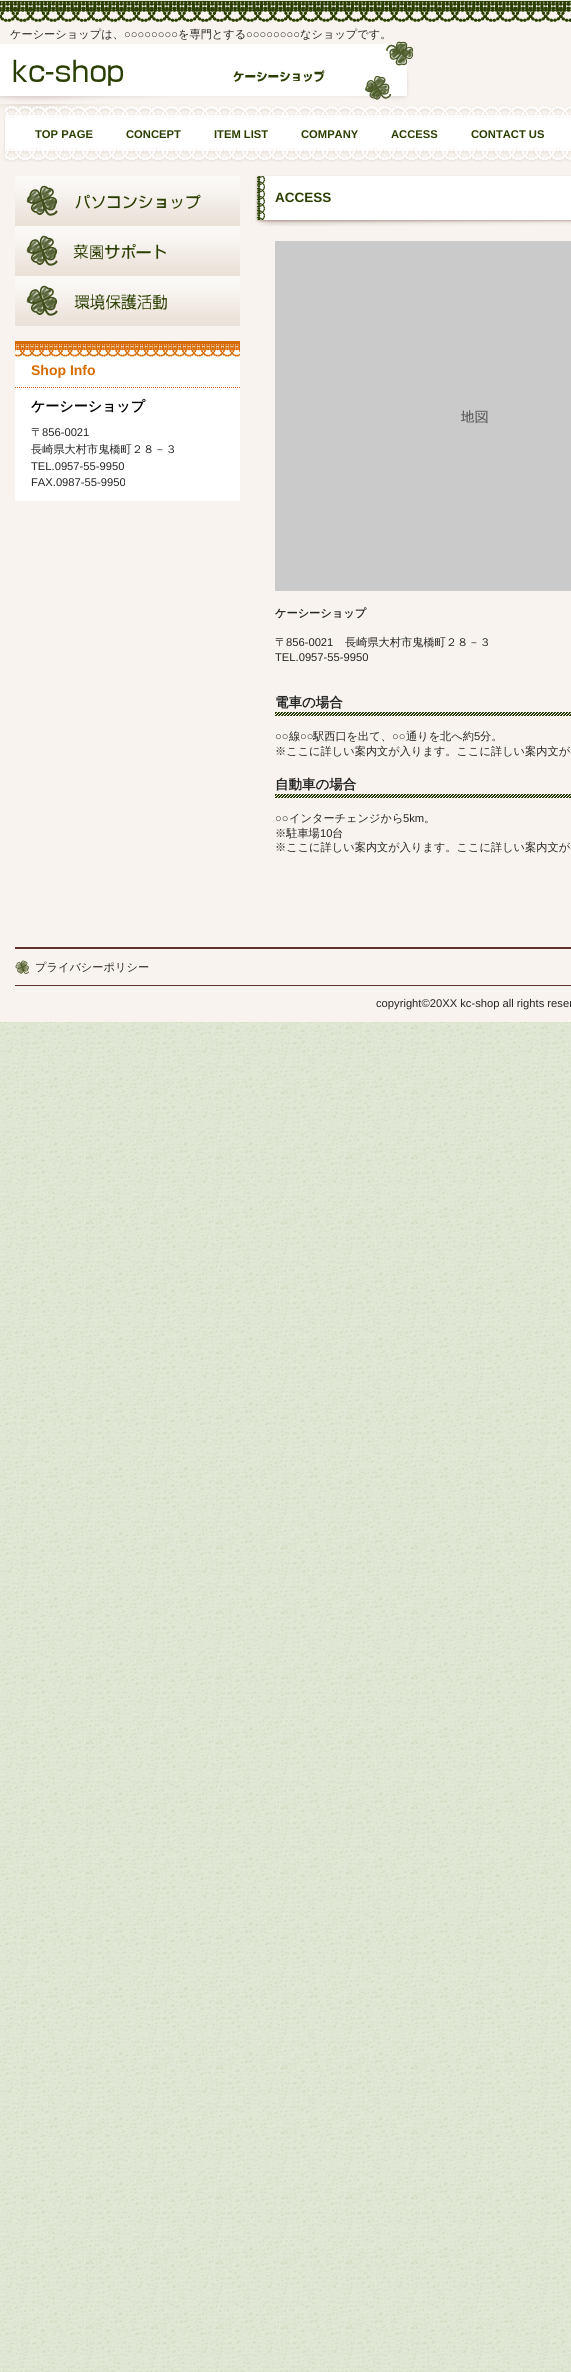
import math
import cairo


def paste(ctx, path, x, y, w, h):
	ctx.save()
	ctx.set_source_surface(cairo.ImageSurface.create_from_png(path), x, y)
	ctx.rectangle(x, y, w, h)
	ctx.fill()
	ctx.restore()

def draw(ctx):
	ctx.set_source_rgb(1, 1, 1)
	ctx.paint()
	paste(ctx, 'media/1.png', 0, 0, 571, 2372)
	ctx.set_source_rgb(0.969, 0.953, 0.933)
	ctx.rectangle(0, 1, 571, 1021)
	ctx.fill()
	paste(ctx, 'media/2.png', 0, 1, 571, 21)
	ctx.select_font_face('WenQuanYi Zen Hei Medium')
	ctx.set_font_size(11.2)
	ctx.set_source_rgb(0.145, 0.145, 0.145)
	ctx.move_to(10, 38)
	ctx.show_text('ケーシーショップは、')
	ctx.select_font_face('Liberation Sans')
	ctx.move_to(124, 38)
	ctx.show_text('○○○○○○○○')
	ctx.select_font_face('WenQuanYi Zen Hei Medium')
	ctx.move_to(178, 38)
	ctx.show_text('を専門とする')
	ctx.select_font_face('Liberation Sans')
	ctx.move_to(246, 38)
	ctx.show_text('○○○○○○○○')
	ctx.select_font_face('WenQuanYi Zen Hei Medium')
	ctx.move_to(300, 38)
	ctx.show_text('なショップです。')
	paste(ctx, 'media/3.png', 0, 41, 414, 61)
	paste(ctx, 'media/4.png', 0, 104, 571, 58)
	ctx.select_font_face('Liberation Sans', cairo.FONT_SLANT_NORMAL, cairo.FONT_WEIGHT_BOLD)
	ctx.set_source_rgb(0.169, 0.243, 0.004)
	for x, y, s in [
		(35, 138, 'TOP PAGE'),
		(126, 138, 'CONCEPT'),
		(214, 138, 'ITEM LIST'),
		(301, 138, 'COMPANY'),
		(391, 138, 'ACCESS'),
		(471, 138, 'CONTACT US'),
	]:
		ctx.move_to(x, y)
		ctx.show_text(s)
	paste(ctx, 'media/5.png', 15, 176, 225, 50)
	paste(ctx, 'media/6.png', 15, 226, 225, 50)
	paste(ctx, 'media/7.png', 15, 276, 225, 50)
	ctx.set_source_rgb(1, 1, 1)
	ctx.rectangle(15, 357, 225, 144)
	ctx.fill()
	paste(ctx, 'media/8.png', 15, 341, 225, 16)
	ctx.new_path()
	ctx.move_to(15, 387.5)
	ctx.line_to(240, 387.5)
	ctx.set_source_rgb(0.843, 0.416, 0)
	ctx.set_line_width(1)
	ctx.set_dash([1, 1])
	ctx.stroke()
	ctx.set_font_size(14)
	ctx.move_to(31, 375)
	ctx.show_text('Shop Info')
	ctx.select_font_face('WenQuanYi Zen Hei', cairo.FONT_SLANT_NORMAL, cairo.FONT_WEIGHT_BOLD)
	ctx.set_source_rgb(0, 0, 0)
	ctx.move_to(31, 411)
	ctx.show_text('ケーシーショップ')
	ctx.select_font_face('WenQuanYi Zen Hei Medium')
	ctx.set_font_size(11.2)
	ctx.set_source_rgb(0.145, 0.145, 0.145)
	ctx.move_to(31, 436)
	ctx.show_text('〒')
	ctx.select_font_face('Liberation Sans')
	ctx.move_to(42, 436)
	ctx.show_text('856-0021')
	ctx.select_font_face('WenQuanYi Zen Hei Medium')
	ctx.move_to(31, 453)
	ctx.show_text('長崎県大村市鬼橋町２８－３')
	ctx.select_font_face('Liberation Sans')
	ctx.move_to(31, 470)
	ctx.show_text('TEL.0957-55-9950')
	ctx.move_to(31, 486)
	ctx.show_text('FAX.0987-55-9950')
	paste(ctx, 'media/9.png', 255, 175, 316, 51)
	ctx.select_font_face('Liberation Sans', cairo.FONT_SLANT_NORMAL, cairo.FONT_WEIGHT_BOLD)
	ctx.set_font_size(13.5)
	ctx.set_source_rgb(0.169, 0.243, 0.004)
	ctx.move_to(275, 202)
	ctx.show_text('ACCESS')
	paste(ctx, 'media/10.png', 275, 241, 296, 350)
	ctx.select_font_face('WenQuanYi Zen Hei', cairo.FONT_SLANT_NORMAL, cairo.FONT_WEIGHT_BOLD)
	ctx.set_font_size(11.2)
	ctx.set_source_rgb(0.145, 0.145, 0.145)
	ctx.move_to(275, 617)
	ctx.show_text('ケーシーショップ')
	ctx.select_font_face('WenQuanYi Zen Hei Medium')
	ctx.move_to(275, 646)
	ctx.show_text('〒')
	ctx.select_font_face('Liberation Sans')
	ctx.move_to(286, 646)
	ctx.show_text('856-0021')
	ctx.select_font_face('WenQuanYi Zen Hei Medium')
	ctx.move_to(345, 646)
	ctx.show_text('長崎県大村市鬼橋町２８－３')
	ctx.select_font_face('Liberation Sans')
	ctx.move_to(275, 661)
	ctx.show_text('TEL.0957-55-9950')
	paste(ctx, 'media/11.png', 275, 712, 296, 4)
	ctx.select_font_face('WenQuanYi Zen Hei', cairo.FONT_SLANT_NORMAL, cairo.FONT_WEIGHT_BOLD)
	ctx.set_font_size(13.5)
	ctx.move_to(275, 707)
	ctx.show_text('電車の場合')
	ctx.select_font_face('Liberation Sans')
	ctx.set_font_size(11.2)
	ctx.move_to(275, 740)
	ctx.show_text('○○')
	ctx.select_font_face('WenQuanYi Zen Hei Medium')
	ctx.move_to(289, 740)
	ctx.show_text('線')
	ctx.select_font_face('Liberation Sans')
	ctx.move_to(300, 740)
	ctx.show_text('○○')
	ctx.select_font_face('WenQuanYi Zen Hei Medium')
	ctx.move_to(313, 740)
	ctx.show_text('駅西口を出て、')
	ctx.select_font_face('Liberation Sans')
	ctx.move_to(392, 740)
	ctx.show_text('○○')
	ctx.select_font_face('WenQuanYi Zen Hei Medium')
	ctx.move_to(406, 740)
	ctx.show_text('通りを北へ約')
	ctx.select_font_face('Liberation Sans')
	ctx.move_to(474, 740)
	ctx.show_text('5')
	ctx.select_font_face('WenQuanYi Zen Hei Medium')
	ctx.move_to(480, 740)
	ctx.show_text('分。')
	ctx.move_to(275, 755)
	ctx.show_text('※ここに詳しい案内文が入ります。ここに詳しい案内文が')
	paste(ctx, 'media/11.png', 275, 794, 296, 4)
	ctx.select_font_face('WenQuanYi Zen Hei', cairo.FONT_SLANT_NORMAL, cairo.FONT_WEIGHT_BOLD)
	ctx.set_font_size(13.5)
	ctx.move_to(275, 789)
	ctx.show_text('自動車の場合')
	ctx.select_font_face('Liberation Sans')
	ctx.set_font_size(11.2)
	ctx.move_to(275, 822)
	ctx.show_text('○○')
	ctx.select_font_face('WenQuanYi Zen Hei Medium')
	ctx.move_to(289, 822)
	ctx.show_text('インターチェンジから')
	ctx.select_font_face('Liberation Sans')
	ctx.move_to(403, 822)
	ctx.show_text('5km')
	ctx.select_font_face('WenQuanYi Zen Hei Medium')
	ctx.move_to(424, 822)
	ctx.show_text('。')
	ctx.move_to(275, 837)
	ctx.show_text('※駐車場')
	ctx.select_font_face('Liberation Sans')
	ctx.move_to(320, 837)
	ctx.show_text('10')
	ctx.select_font_face('WenQuanYi Zen Hei Medium')
	ctx.move_to(332, 837)
	ctx.show_text('台')
	ctx.move_to(275, 851)
	ctx.show_text('※ここに詳しい案内文が入ります。ここに詳しい案内文が')
	ctx.set_source_rgb(0.361, 0.196, 0.165)
	ctx.rectangle(15, 947, 556, 2)
	ctx.fill()
	ctx.rectangle(15, 985, 556, 1)
	ctx.fill()
	paste(ctx, 'media/12.png', 15, 960, 14, 14)
	ctx.set_source_rgb(0.145, 0.145, 0.145)
	ctx.move_to(35, 971)
	ctx.show_text('プライバシーポリシー')
	ctx.select_font_face('Liberation Sans')
	ctx.move_to(376, 1007)
	ctx.show_text('copyright©20XX kc-shop all rights reser')


surface = cairo.ImageSurface(cairo.FORMAT_RGB24, 571, 2372)
ctx = cairo.Context(surface)
options = cairo.FontOptions()
options.set_hint_metrics(cairo.HINT_METRICS_OFF)
options.set_hint_style(cairo.HINT_STYLE_NONE)
ctx.set_font_options(options)
ctx.set_miter_limit(4)
draw(ctx)
surface.write_to_png('image.png')
